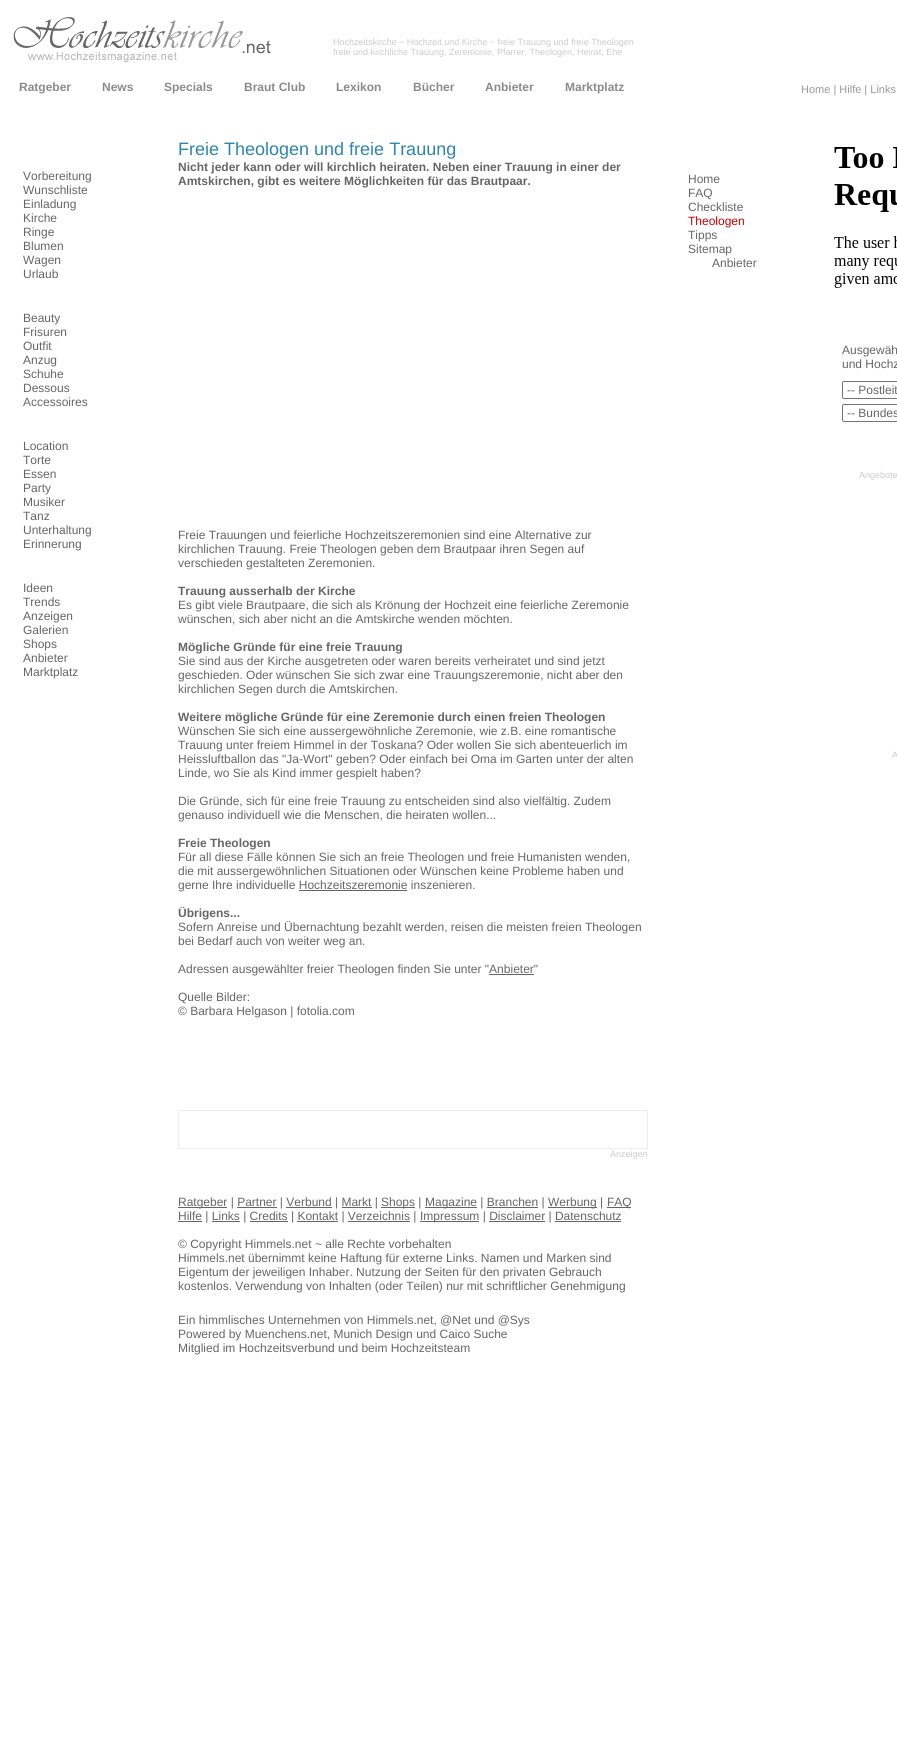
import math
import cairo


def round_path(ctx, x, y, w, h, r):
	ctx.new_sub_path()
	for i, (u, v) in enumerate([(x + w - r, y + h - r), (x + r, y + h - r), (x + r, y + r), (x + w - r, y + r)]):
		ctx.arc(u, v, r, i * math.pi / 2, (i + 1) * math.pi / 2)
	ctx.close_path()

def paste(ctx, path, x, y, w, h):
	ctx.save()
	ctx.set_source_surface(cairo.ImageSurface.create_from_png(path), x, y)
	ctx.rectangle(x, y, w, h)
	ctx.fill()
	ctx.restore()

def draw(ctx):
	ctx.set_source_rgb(1, 1, 1)
	ctx.paint()
	paste(ctx, 'media/1.png', 13, 17, 258, 46)
	ctx.select_font_face('Liberation Sans')
	ctx.set_font_size(9)
	ctx.set_source_rgb(0.8, 0.8, 0.8)
	ctx.move_to(333, 45)
	ctx.show_text('Hochzeitskirche ~ Hochzeit und Kirche ~ freie Trauung und freie Theologen')
	ctx.move_to(333, 55)
	ctx.show_text('freie und kirchliche Trauung, Zeremonie, Pfarrer, Theologen, Heirat, Ehe')
	ctx.select_font_face('Liberation Sans', cairo.FONT_SLANT_NORMAL, cairo.FONT_WEIGHT_BOLD)
	ctx.set_font_size(12)
	ctx.set_source_rgb(0.545, 0.545, 0.545)
	for x, y, s in [
		(19, 91, 'Ratgeber'),
		(102, 91, 'News'),
		(164, 91, 'Specials'),
		(244, 91, 'Braut Club'),
		(336, 91, 'Lexikon'),
		(413, 91, 'Bücher'),
		(485, 91, 'Anbieter'),
		(565, 91, 'Marktplatz'),
	]:
		ctx.move_to(x, y)
		ctx.show_text(s)
	ctx.select_font_face('Liberation Sans')
	ctx.set_font_size(11)
	ctx.set_source_rgb(0.6, 0.6, 0.6)
	ctx.move_to(801, 93)
	ctx.show_text('Home | Hilfe | Links')
	ctx.set_font_size(12)
	ctx.set_source_rgb(0.4, 0.4, 0.4)
	for x, y, s in [
		(23, 180, 'Vorbereitung'),
		(23, 194, 'Wunschliste'),
		(23, 208, 'Einladung'),
		(23, 222, 'Kirche'),
		(23, 236, 'Ringe'),
		(23, 250, 'Blumen'),
		(23, 264, 'Wagen'),
		(23, 278, 'Urlaub'),
		(23, 322, 'Beauty'),
		(23, 336, 'Frisuren'),
		(23, 350, 'Outfit'),
		(23, 364, 'Anzug'),
		(23, 378, 'Schuhe'),
		(23, 392, 'Dessous'),
		(23, 406, 'Accessoires'),
		(23, 450, 'Location'),
		(23, 464, 'Torte'),
		(23, 478, 'Essen'),
		(23, 492, 'Party'),
		(23, 506, 'Musiker'),
		(23, 520, 'Tanz'),
		(23, 534, 'Unterhaltung'),
		(23, 548, 'Erinnerung'),
		(23, 592, 'Ideen'),
		(23, 606, 'Trends'),
		(23, 620, 'Anzeigen'),
		(23, 634, 'Galerien'),
		(23, 648, 'Shops'),
		(23, 662, 'Anbieter'),
		(23, 676, 'Marktplatz'),
	]:
		ctx.move_to(x, y)
		ctx.show_text(s)
	ctx.set_font_size(18)
	ctx.set_source_rgb(0.176, 0.525, 0.69)
	ctx.move_to(178, 155)
	ctx.show_text('Freie Theologen und freie Trauung')
	ctx.select_font_face('Liberation Sans', cairo.FONT_SLANT_NORMAL, cairo.FONT_WEIGHT_BOLD)
	ctx.set_font_size(12)
	ctx.set_source_rgb(0.4, 0.4, 0.4)
	ctx.move_to(178, 171)
	ctx.show_text('Nicht jeder kann oder will kirchlich heiraten. Neben einer Trauung in einer der')
	ctx.move_to(178, 185)
	ctx.show_text('Amtskirchen, gibt es weitere Möglichkeiten für das Brautpaar.')
	ctx.select_font_face('Liberation Sans')
	for x, y, s in [
		(178, 539, 'Freie Trauungen und feierliche Hochzeitszeremonien sind eine Alternative zur'),
		(178, 553, 'kirchlichen Trauung. Freie Theologen geben dem Brautpaar ihren Segen auf'),
		(178, 567, 'verschieden gestalteten Zeremonien.'),
	]:
		ctx.move_to(x, y)
		ctx.show_text(s)
	ctx.select_font_face('Liberation Sans', cairo.FONT_SLANT_NORMAL, cairo.FONT_WEIGHT_BOLD)
	ctx.move_to(178, 595)
	ctx.show_text('Trauung ausserhalb der Kirche')
	ctx.select_font_face('Liberation Sans')
	ctx.move_to(178, 609)
	ctx.show_text('Es gibt viele Brautpaare, die sich als Krönung der Hochzeit eine feierliche Zeremonie')
	ctx.move_to(178, 623)
	ctx.show_text('wünschen, sich aber nicht an die Amtskirche wenden möchten.')
	ctx.select_font_face('Liberation Sans', cairo.FONT_SLANT_NORMAL, cairo.FONT_WEIGHT_BOLD)
	ctx.move_to(178, 651)
	ctx.show_text('Mögliche Gründe für eine freie Trauung')
	ctx.select_font_face('Liberation Sans')
	for x, y, s in [
		(178, 665, 'Sie sind aus der Kirche ausgetreten oder waren bereits verheiratet und sind jetzt'),
		(178, 679, 'geschieden. Oder wünschen Sie sich zwar eine Trauungszeremonie, nicht aber den'),
		(178, 693, 'kirchlichen Segen durch die Amtskirchen.'),
	]:
		ctx.move_to(x, y)
		ctx.show_text(s)
	ctx.select_font_face('Liberation Sans', cairo.FONT_SLANT_NORMAL, cairo.FONT_WEIGHT_BOLD)
	ctx.move_to(178, 721)
	ctx.show_text('Weitere mögliche Gründe für eine Zeremonie durch einen freien Theologen')
	ctx.select_font_face('Liberation Sans')
	for x, y, s in [
		(178, 735, 'Wünschen Sie sich eine aussergewöhnliche Zeremonie, wie z.B. eine romantische'),
		(178, 749, 'Trauung unter freiem Himmel in der Toskana? Oder wollen Sie sich abenteuerlich im'),
		(178, 763, 'Heissluftballon das "Ja-Wort" geben? Oder einfach bei Oma im Garten unter der alten'),
		(178, 777, 'Linde, wo Sie als Kind immer gespielt haben?'),
		(178, 805, 'Die Gründe, sich für eine freie Trauung zu entscheiden sind also vielfältig. Zudem'),
		(178, 819, 'genauso individuell wie die Menschen, die heiraten wollen...'),
	]:
		ctx.move_to(x, y)
		ctx.show_text(s)
	ctx.select_font_face('Liberation Sans', cairo.FONT_SLANT_NORMAL, cairo.FONT_WEIGHT_BOLD)
	ctx.move_to(178, 847)
	ctx.show_text('Freie Theologen')
	ctx.select_font_face('Liberation Sans')
	for x, y, s in [
		(178, 861, 'Für all diese Fälle können Sie sich an freie Theologen und freie Humanisten wenden,'),
		(178, 875, 'die mit aussergewöhnlichen Situationen oder Wünschen keine Probleme haben und'),
		(178, 889, 'gerne Ihre individuelle Hochzeitszeremonie inszenieren.'),
	]:
		ctx.move_to(x, y)
		ctx.show_text(s)
	ctx.rectangle(299, 890, 108, 1)
	ctx.fill()
	ctx.select_font_face('Liberation Sans', cairo.FONT_SLANT_NORMAL, cairo.FONT_WEIGHT_BOLD)
	ctx.move_to(178, 917)
	ctx.show_text('Übrigens...')
	ctx.select_font_face('Liberation Sans')
	for x, y, s in [
		(178, 931, 'Sofern Anreise und Übernachtung bezahlt werden, reisen die meisten freien Theologen'),
		(178, 945, 'bei Bedarf auch von weiter weg an.'),
		(178, 973, 'Adressen ausgewählter freier Theologen finden Sie unter "Anbieter"'),
	]:
		ctx.move_to(x, y)
		ctx.show_text(s)
	ctx.rectangle(489, 974, 45, 1)
	ctx.fill()
	ctx.move_to(178, 1001)
	ctx.show_text('Quelle Bilder:')
	ctx.move_to(178, 1015)
	ctx.show_text('© Barbara Helgason | fotolia.com')
	ctx.rectangle(178.5, 1110.5, 469, 38)
	ctx.set_source_rgb(0.922, 0.922, 0.922)
	ctx.set_line_width(1)
	ctx.stroke()
	ctx.set_font_size(9)
	ctx.set_source_rgb(0.8, 0.8, 0.8)
	ctx.move_to(610, 1157)
	ctx.show_text('Anzeigen')
	ctx.set_source_rgb(0.4, 0.4, 0.4)
	ctx.rectangle(178, 1207, 49, 1)
	ctx.fill()
	ctx.set_font_size(12)
	ctx.move_to(178, 1206)
	ctx.show_text('Ratgeber | Partner | Verbund | Markt |')
	ctx.rectangle(381, 1207, 34, 1)
	ctx.fill()
	ctx.move_to(381, 1206)
	ctx.show_text('Shops |')
	ctx.rectangle(425, 1207, 52, 1)
	ctx.fill()
	ctx.move_to(425, 1206)
	ctx.show_text('Magazine | Branchen |')
	ctx.rectangle(548, 1207, 49, 1)
	ctx.fill()
	ctx.move_to(548, 1206)
	ctx.show_text('Werbung |')
	ctx.rectangle(607, 1207, 24, 1)
	ctx.fill()
	ctx.move_to(607, 1206)
	ctx.show_text('FAQ')
	ctx.rectangle(237, 1207, 40, 1)
	ctx.rectangle(286, 1207, 46, 1)
	ctx.rectangle(342, 1207, 30, 1)
	ctx.rectangle(487, 1207, 51, 1)
	ctx.rectangle(178, 1221, 24, 1)
	ctx.fill()
	ctx.move_to(178, 1220)
	ctx.show_text('Hilfe | Links | Credits | Kontakt | Verzeichnis |')
	ctx.rectangle(420, 1221, 59, 1)
	ctx.fill()
	ctx.move_to(420, 1220)
	ctx.show_text('Impressum | Disclaimer | Datenschutz')
	ctx.rectangle(212, 1221, 28, 1)
	ctx.rectangle(250, 1221, 38, 1)
	ctx.rectangle(297, 1221, 41, 1)
	ctx.rectangle(348, 1221, 62, 1)
	ctx.rectangle(489, 1221, 56, 1)
	ctx.rectangle(555, 1221, 66, 1)
	ctx.fill()
	for x, y, s in [
		(178, 1248, '© Copyright Himmels.net ~ alle Rechte vorbehalten'),
		(178, 1262, 'Himmels.net übernimmt keine Haftung für externe Links. Namen und Marken sind'),
		(178, 1276, 'Eigentum der jeweiligen Inhaber. Nutzung der Seiten für den privaten Gebrauch'),
		(178, 1290, 'kostenlos. Verwendung von Inhalten (oder Teilen) nur mit schriftlicher Genehmigung'),
		(178, 1324, 'Ein himmlisches Unternehmen von Himmels.net, @Net und @Sys'),
		(178, 1338, 'Powered by Muenchens.net, Munich Design und Caico Suche'),
		(178, 1352, 'Mitglied im Hochzeitsverbund und beim Hochzeitsteam'),
		(688, 183, 'Home'),
		(688, 197, 'FAQ'),
		(688, 211, 'Checkliste'),
	]:
		ctx.move_to(x, y)
		ctx.show_text(s)
	ctx.set_source_rgb(0.8, 0, 0)
	ctx.move_to(688, 225)
	ctx.show_text('Theologen')
	ctx.set_source_rgb(0.4, 0.4, 0.4)
	for x, y, s in [
		(688, 239, 'Tipps'),
		(688, 253, 'Sitemap'),
		(712, 267, 'Anbieter'),
	]:
		ctx.move_to(x, y)
		ctx.show_text(s)
	paste(ctx, 'media/2.png', 834, 147, 63, 141)
	ctx.move_to(842, 354)
	ctx.show_text('Ausgewäh')
	ctx.move_to(842, 368)
	ctx.show_text('und Hochz')
	round_path(ctx, 842.5, 381.5, 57, 17, 1.5)
	ctx.set_source_rgb(0.463, 0.463, 0.463)
	ctx.stroke()
	ctx.set_source_rgb(0.4, 0.4, 0.4)
	ctx.move_to(847, 394)
	ctx.show_text('-- Postleit')
	round_path(ctx, 842.5, 404.5, 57, 17, 1.5)
	ctx.set_source_rgb(0.463, 0.463, 0.463)
	ctx.stroke()
	ctx.set_source_rgb(0.4, 0.4, 0.4)
	ctx.move_to(847, 417)
	ctx.show_text('-- Bundes')
	ctx.set_font_size(9)
	ctx.set_source_rgb(0.8, 0.8, 0.8)
	ctx.move_to(859, 478)
	ctx.show_text('Angebote')
	ctx.move_to(892, 758)
	ctx.show_text('A')


surface = cairo.ImageSurface(cairo.FORMAT_RGB24, 897, 1753)
ctx = cairo.Context(surface)
options = cairo.FontOptions()
options.set_hint_metrics(cairo.HINT_METRICS_OFF)
options.set_hint_style(cairo.HINT_STYLE_NONE)
ctx.set_font_options(options)
ctx.set_miter_limit(4)
draw(ctx)
surface.write_to_png('image.png')
